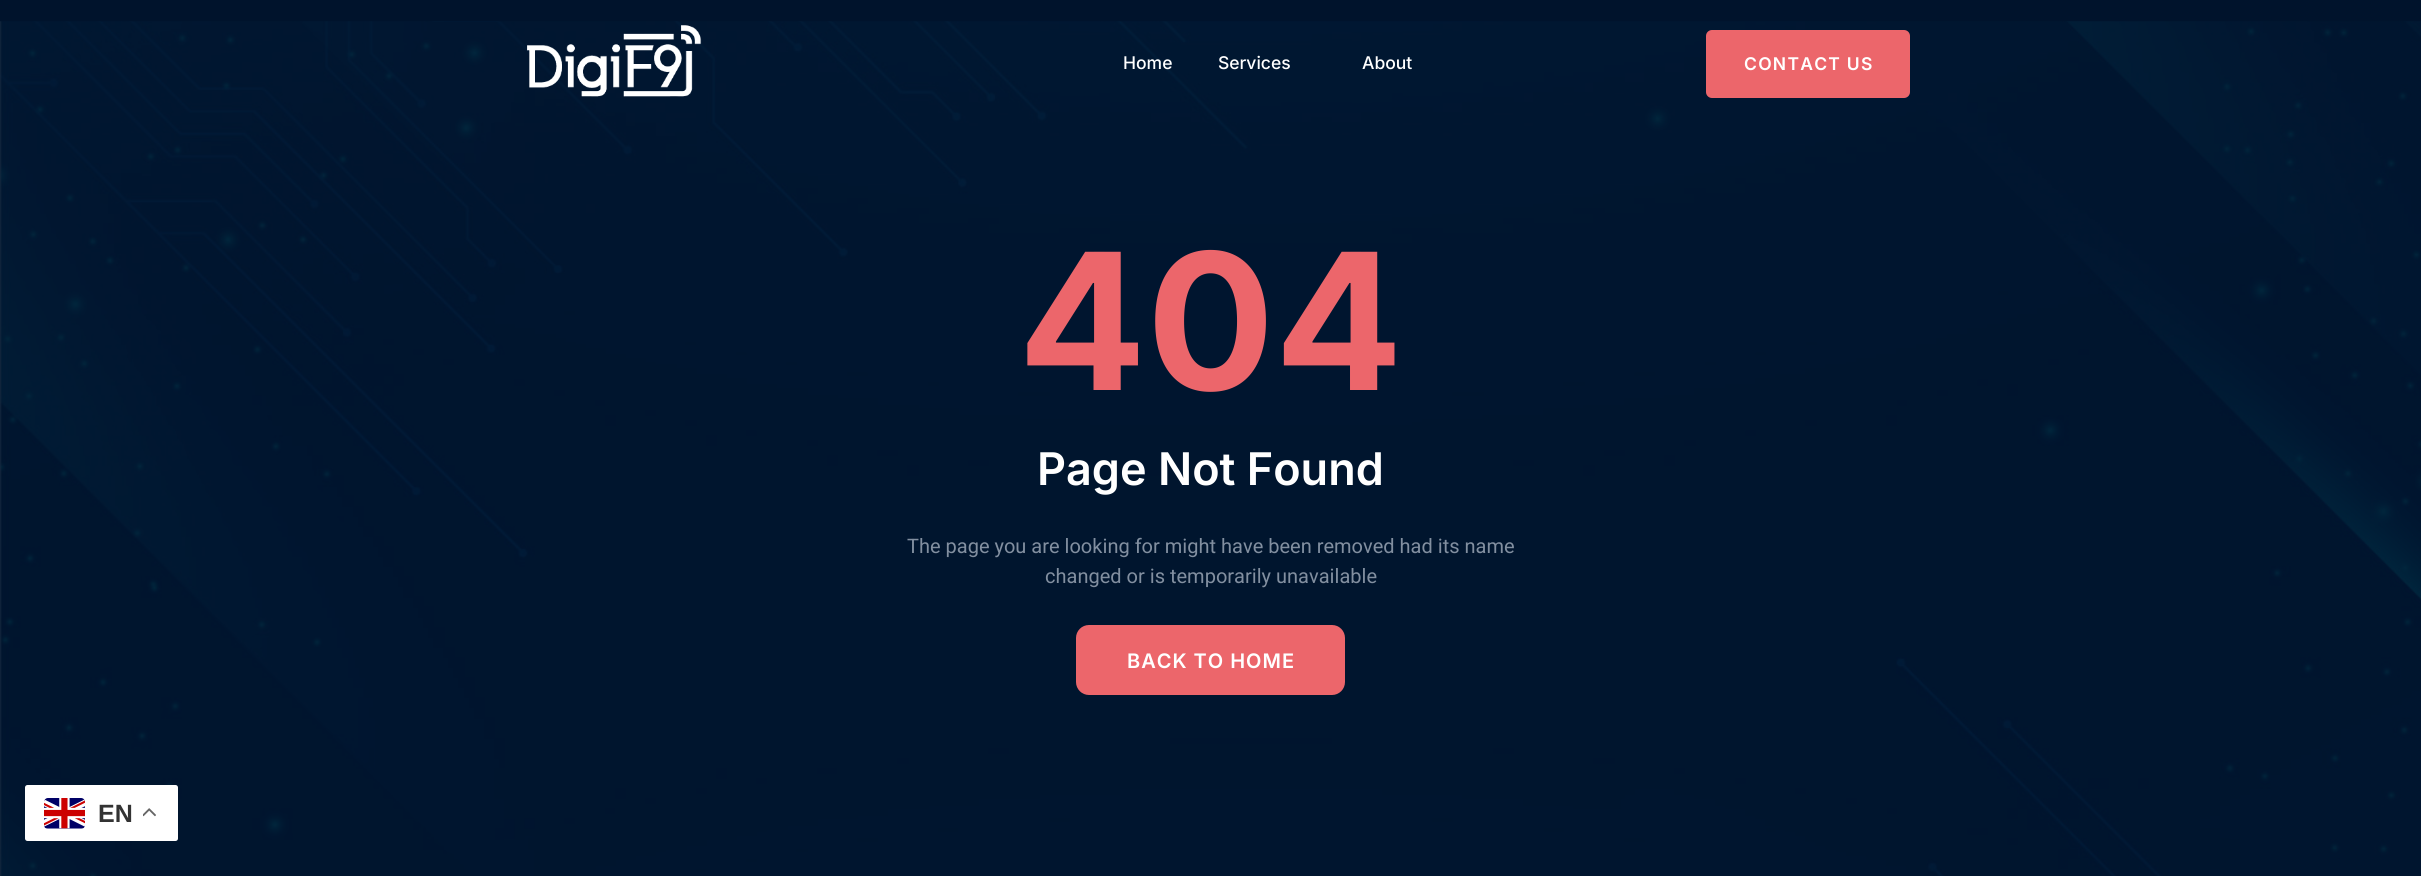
import math
import cairo


def write_spaced(ctx, x, y, s, letter, word):
	ctx.move_to(x, y)
	for ch in s:
		ctx.show_text(ch)
		ctx.rel_move_to(letter + word * (ch == ' '), 0)

def round_path(ctx, x, y, w, h, r):
	ctx.new_sub_path()
	for i, (u, v) in enumerate([(x + w - r, y + h - r), (x + r, y + h - r), (x + r, y + r), (x + w - r, y + r)]):
		ctx.arc(u, v, r, i * math.pi / 2, (i + 1) * math.pi / 2)
	ctx.close_path()

def paste(ctx, path, x, y, w, h):
	ctx.save()
	ctx.set_source_surface(cairo.ImageSurface.create_from_png(path), x, y)
	ctx.rectangle(x, y, w, h)
	ctx.fill()
	ctx.restore()

def draw(ctx):
	ctx.set_source_rgb(0, 0.078, 0.173)
	ctx.paint()
	paste(ctx, 'media/2.png', 0, 21, 2421, 855)
	paste(ctx, 'media/1.png', 527, 25, 175, 72)
	ctx.select_font_face('Inter Medium')
	ctx.set_font_size(17.5)
	ctx.set_source_rgb(1, 1, 1)
	for x, y, s in [
		(1123, 69, 'Home'),
		(1218, 69, 'Services'),
		(1362, 69, 'About'),
	]:
		ctx.move_to(x, y)
		ctx.show_text(s)
	ctx.set_source_rgb(0.922, 0.4, 0.42)
	round_path(ctx, 1706, 30, 204, 68, 6)
	ctx.fill()
	ctx.select_font_face('Inter SemiBold')
	ctx.set_source_rgb(1, 1, 1)
	write_spaced(ctx, 1744, 70, 'CONTACT US', 1.25, 0)
	ctx.select_font_face('Inter', cairo.FONT_SLANT_NORMAL, cairo.FONT_WEIGHT_BOLD)
	ctx.set_font_size(190)
	ctx.set_source_rgb(0.922, 0.4, 0.42)
	ctx.move_to(1018, 390)
	ctx.show_text('404')
	ctx.select_font_face('Inter SemiBold')
	ctx.set_font_size(45)
	ctx.set_source_rgb(1, 1, 1)
	ctx.move_to(1037, 485)
	ctx.show_text('Page Not Found')
	ctx.select_font_face('Heebo')
	ctx.set_font_size(20)
	ctx.set_source_rgb(0.51, 0.561, 0.627)
	ctx.move_to(907, 553)
	ctx.show_text('The page you are looking for might have been removed had its name')
	ctx.move_to(1045, 583)
	ctx.show_text('changed or is temporarily unavailable')
	ctx.set_source_rgb(0.922, 0.4, 0.42)
	round_path(ctx, 1076, 625, 269, 70, 13)
	ctx.fill()
	ctx.select_font_face('Inter SemiBold')
	ctx.set_source_rgb(1, 1, 1)
	write_spaced(ctx, 1127, 668, 'BACK TO HOME', 1, 0)
	round_path(ctx, 25, 785, 153, 56, 2.5)
	ctx.fill()
	paste(ctx, 'media/3.png', 44, 798, 41, 31)
	ctx.select_font_face('Liberation Sans', cairo.FONT_SLANT_NORMAL, cairo.FONT_WEIGHT_BOLD)
	ctx.set_font_size(25)
	ctx.set_source_rgb(0.2, 0.2, 0.2)
	ctx.move_to(98, 822)
	ctx.show_text('EN')
	paste(ctx, 'media/4.png', 143, 808, 13, 9)


surface = cairo.ImageSurface(cairo.FORMAT_RGB24, 2421, 876)
ctx = cairo.Context(surface)
options = cairo.FontOptions()
options.set_hint_metrics(cairo.HINT_METRICS_OFF)
options.set_hint_style(cairo.HINT_STYLE_NONE)
ctx.set_font_options(options)
ctx.set_miter_limit(4)
draw(ctx)
surface.write_to_png('image.png')
